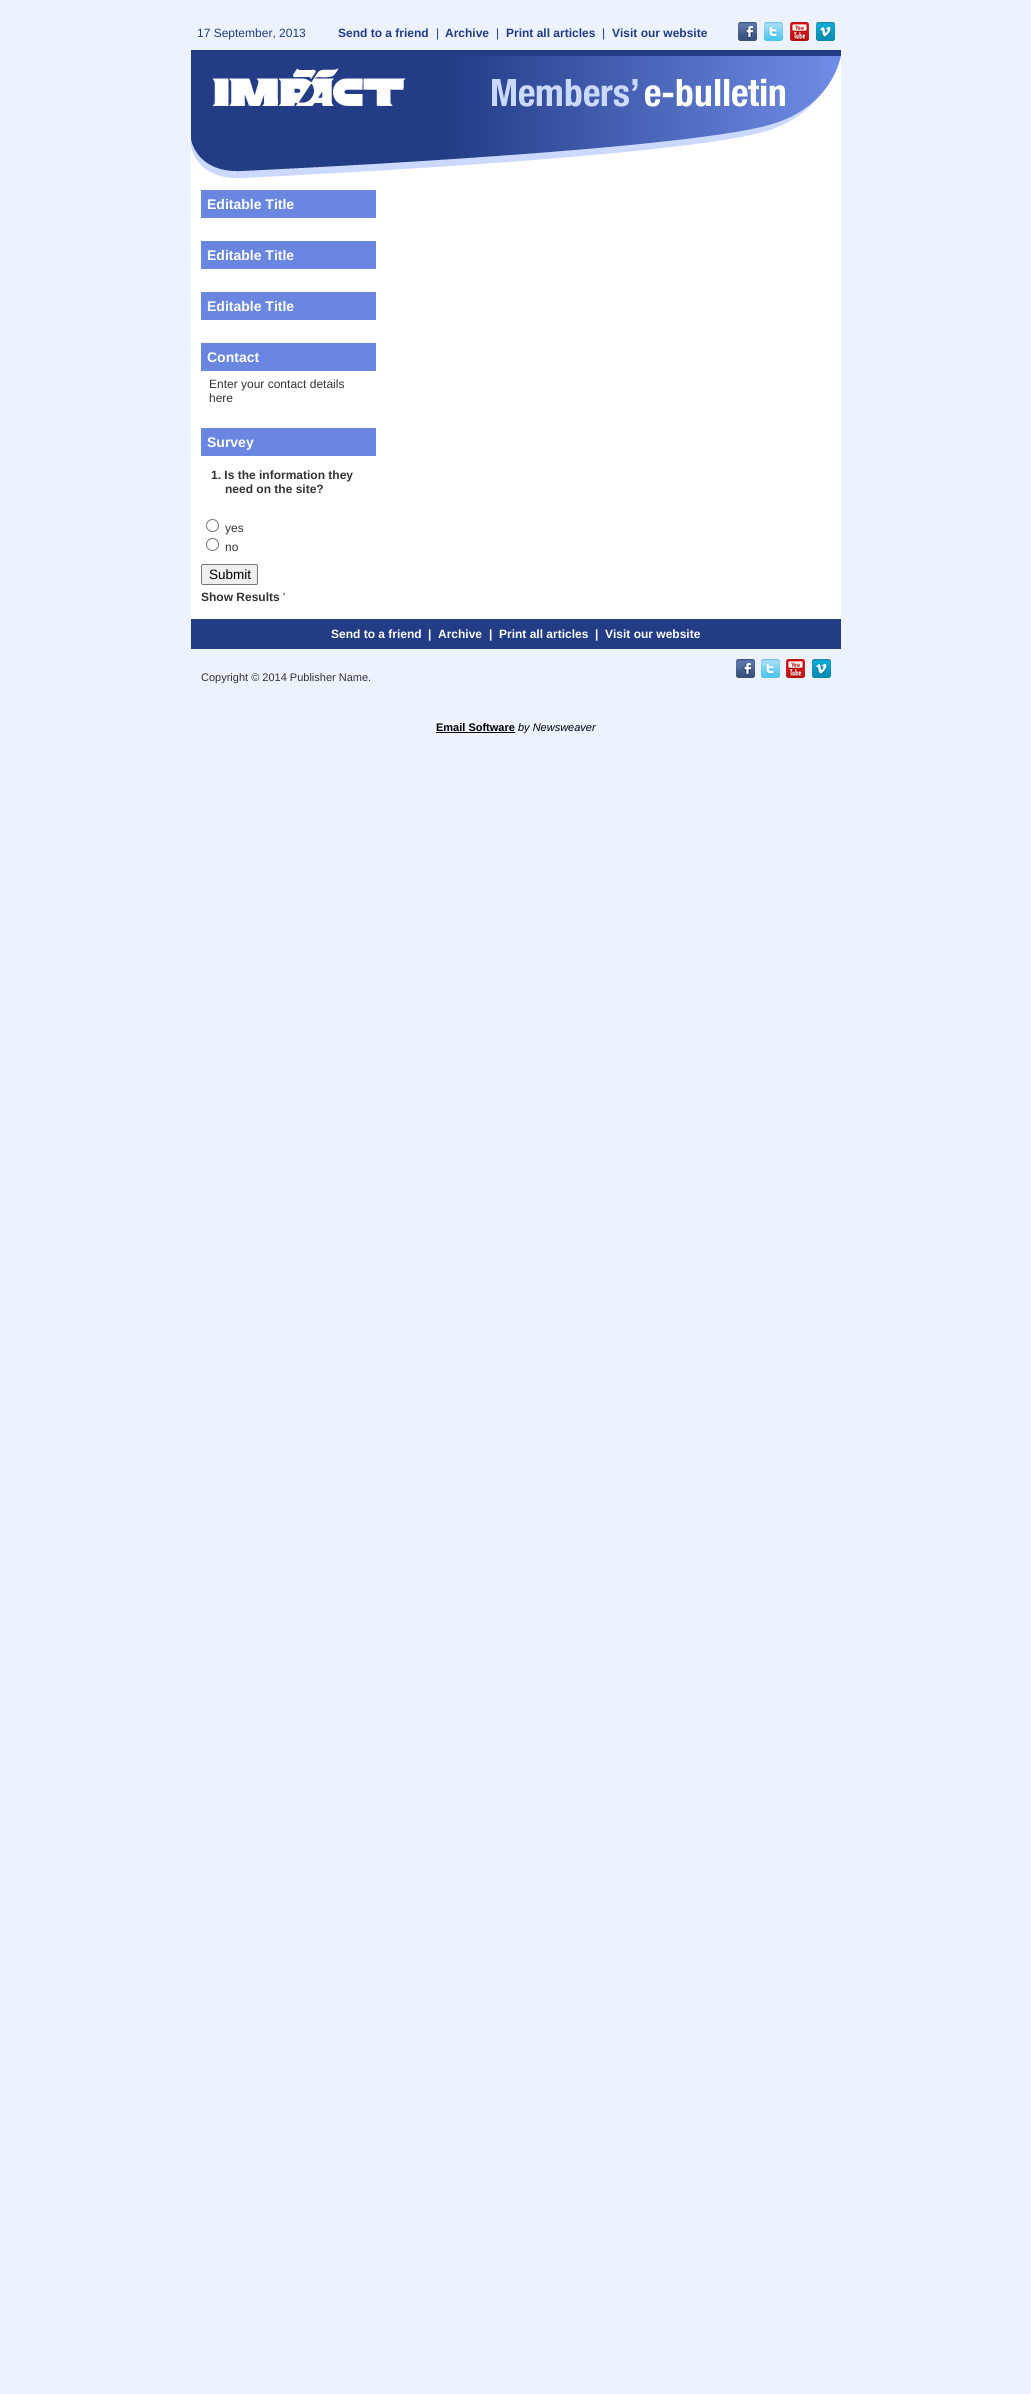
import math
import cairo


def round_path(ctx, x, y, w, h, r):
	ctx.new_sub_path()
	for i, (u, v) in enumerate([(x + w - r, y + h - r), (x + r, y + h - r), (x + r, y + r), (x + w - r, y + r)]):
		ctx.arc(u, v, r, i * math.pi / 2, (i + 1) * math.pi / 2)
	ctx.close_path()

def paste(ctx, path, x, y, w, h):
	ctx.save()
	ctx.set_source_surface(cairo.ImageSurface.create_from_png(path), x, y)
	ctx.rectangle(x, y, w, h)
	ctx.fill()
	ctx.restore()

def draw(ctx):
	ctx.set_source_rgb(0.922, 0.949, 1)
	ctx.paint()
	ctx.set_source_rgb(1, 1, 1)
	ctx.rectangle(191, 179, 650, 440)
	ctx.fill()
	ctx.select_font_face('Liberation Sans')
	ctx.set_font_size(12)
	ctx.set_source_rgb(0.133, 0.235, 0.525)
	ctx.move_to(197, 37)
	ctx.show_text('17 September, 2013')
	ctx.select_font_face('Liberation Sans', cairo.FONT_SLANT_NORMAL, cairo.FONT_WEIGHT_BOLD)
	ctx.move_to(338, 37)
	ctx.show_text('Send to a friend')
	ctx.select_font_face('Liberation Sans')
	ctx.move_to(436, 37)
	ctx.show_text('|')
	ctx.select_font_face('Liberation Sans', cairo.FONT_SLANT_NORMAL, cairo.FONT_WEIGHT_BOLD)
	ctx.move_to(445, 37)
	ctx.show_text('Archive')
	ctx.select_font_face('Liberation Sans')
	ctx.move_to(496, 37)
	ctx.show_text('|')
	ctx.select_font_face('Liberation Sans', cairo.FONT_SLANT_NORMAL, cairo.FONT_WEIGHT_BOLD)
	ctx.move_to(506, 37)
	ctx.show_text('Print all articles')
	ctx.select_font_face('Liberation Sans')
	ctx.move_to(602, 37)
	ctx.show_text('|')
	ctx.select_font_face('Liberation Sans', cairo.FONT_SLANT_NORMAL, cairo.FONT_WEIGHT_BOLD)
	ctx.move_to(612, 37)
	ctx.show_text('Visit our website')
	paste(ctx, 'media/1.png', 738, 22, 19, 19)
	paste(ctx, 'media/2.png', 764, 22, 19, 19)
	paste(ctx, 'media/3.png', 790, 22, 19, 19)
	paste(ctx, 'media/4.png', 816, 22, 19, 19)
	paste(ctx, 'media/5.png', 191, 50, 650, 129)
	ctx.set_source_rgb(0.412, 0.525, 0.878)
	ctx.rectangle(201, 190, 175, 28)
	ctx.fill()
	ctx.set_font_size(14)
	ctx.set_source_rgb(1, 1, 1)
	ctx.move_to(207, 209)
	ctx.show_text('Editable Title')
	ctx.set_source_rgb(0.412, 0.525, 0.878)
	ctx.rectangle(201, 241, 175, 28)
	ctx.fill()
	ctx.set_source_rgb(1, 1, 1)
	ctx.move_to(207, 260)
	ctx.show_text('Editable Title')
	ctx.set_source_rgb(0.412, 0.525, 0.878)
	ctx.rectangle(201, 292, 175, 28)
	ctx.fill()
	ctx.set_source_rgb(1, 1, 1)
	ctx.move_to(207, 311)
	ctx.show_text('Editable Title')
	ctx.set_source_rgb(0.412, 0.525, 0.878)
	ctx.rectangle(201, 343, 175, 28)
	ctx.fill()
	ctx.set_source_rgb(1, 1, 1)
	ctx.move_to(207, 362)
	ctx.show_text('Contact')
	ctx.select_font_face('Liberation Sans')
	ctx.set_font_size(12)
	ctx.set_source_rgb(0.2, 0.2, 0.2)
	ctx.move_to(209, 388)
	ctx.show_text('Enter your contact details')
	ctx.move_to(209, 402)
	ctx.show_text('here')
	ctx.set_source_rgb(0.412, 0.525, 0.878)
	ctx.rectangle(201, 428, 175, 28)
	ctx.fill()
	ctx.select_font_face('Liberation Sans', cairo.FONT_SLANT_NORMAL, cairo.FONT_WEIGHT_BOLD)
	ctx.set_font_size(14)
	ctx.set_source_rgb(1, 1, 1)
	ctx.move_to(207, 447)
	ctx.show_text('Survey')
	ctx.set_font_size(12)
	ctx.set_source_rgb(0.2, 0.2, 0.2)
	ctx.move_to(211, 479)
	ctx.show_text('1. Is the information they')
	ctx.move_to(225, 493)
	ctx.show_text('need on the site?')
	ctx.new_path()
	ctx.arc(212.5, 525.5, 6, 0, 2 * math.pi)
	ctx.set_source_rgb(0.463, 0.463, 0.463)
	ctx.set_line_width(1)
	ctx.stroke()
	ctx.select_font_face('Liberation Sans')
	ctx.set_source_rgb(0.2, 0.2, 0.2)
	ctx.move_to(225, 532)
	ctx.show_text('yes')
	ctx.new_path()
	ctx.arc(212.5, 544.5, 6, 0, 2 * math.pi)
	ctx.set_source_rgb(0.463, 0.463, 0.463)
	ctx.stroke()
	ctx.set_source_rgb(0.2, 0.2, 0.2)
	ctx.move_to(225, 551)
	ctx.show_text('no')
	ctx.set_source_rgb(0.937, 0.937, 0.937)
	round_path(ctx, 201.5, 564.5, 56, 20, 1.5)
	ctx.fill_preserve()
	ctx.set_source_rgb(0.463, 0.463, 0.463)
	ctx.stroke()
	ctx.set_font_size(13.5)
	ctx.set_source_rgb(0, 0, 0.004)
	ctx.move_to(209, 579)
	ctx.show_text('Submit')
	ctx.select_font_face('Liberation Sans', cairo.FONT_SLANT_NORMAL, cairo.FONT_WEIGHT_BOLD)
	ctx.set_font_size(12)
	ctx.set_source_rgb(0.2, 0.2, 0.2)
	ctx.move_to(201, 601)
	ctx.show_text('Show Results')
	ctx.select_font_face('Liberation Sans')
	ctx.move_to(283, 601)
	ctx.show_text('\'')
	ctx.set_source_rgb(0.133, 0.235, 0.525)
	ctx.rectangle(191, 619, 650, 30)
	ctx.fill()
	ctx.select_font_face('Liberation Sans', cairo.FONT_SLANT_NORMAL, cairo.FONT_WEIGHT_BOLD)
	ctx.set_source_rgb(1, 1, 1)
	for x, y, s in [
		(331, 638, 'Send to a friend'),
		(428, 638, '|'),
		(438, 638, 'Archive'),
		(489, 638, '|'),
		(499, 638, 'Print all articles'),
		(595, 638, '|'),
		(605, 638, 'Visit our website'),
	]:
		ctx.move_to(x, y)
		ctx.show_text(s)
	ctx.select_font_face('Liberation Sans')
	ctx.set_font_size(11)
	ctx.set_source_rgb(0.2, 0.2, 0.2)
	ctx.move_to(201, 681)
	ctx.show_text('Copyright © 2014 Publisher Name.')
	paste(ctx, 'media/1.png', 736, 659, 19, 19)
	paste(ctx, 'media/2.png', 761, 659, 19, 19)
	paste(ctx, 'media/3.png', 786, 659, 19, 19)
	paste(ctx, 'media/4.png', 812, 659, 19, 19)
	ctx.select_font_face('Liberation Sans', cairo.FONT_SLANT_NORMAL, cairo.FONT_WEIGHT_BOLD)
	ctx.set_source_rgb(0, 0, 0.004)
	ctx.move_to(436, 731)
	ctx.show_text('Email Software')
	ctx.rectangle(436, 732, 79, 1)
	ctx.fill()
	ctx.select_font_face('Liberation Sans', cairo.FONT_SLANT_ITALIC)
	ctx.move_to(518, 731)
	ctx.show_text('by Newsweaver')


surface = cairo.ImageSurface(cairo.FORMAT_RGB24, 1031, 2394)
ctx = cairo.Context(surface)
options = cairo.FontOptions()
options.set_hint_metrics(cairo.HINT_METRICS_OFF)
options.set_hint_style(cairo.HINT_STYLE_NONE)
ctx.set_font_options(options)
ctx.set_miter_limit(4)
draw(ctx)
surface.write_to_png('image.png')
